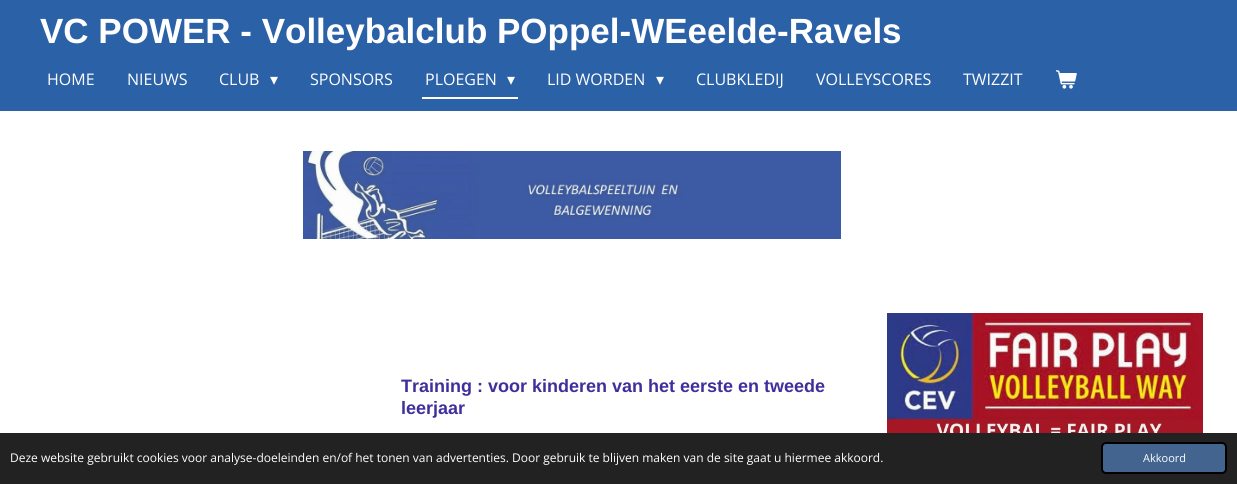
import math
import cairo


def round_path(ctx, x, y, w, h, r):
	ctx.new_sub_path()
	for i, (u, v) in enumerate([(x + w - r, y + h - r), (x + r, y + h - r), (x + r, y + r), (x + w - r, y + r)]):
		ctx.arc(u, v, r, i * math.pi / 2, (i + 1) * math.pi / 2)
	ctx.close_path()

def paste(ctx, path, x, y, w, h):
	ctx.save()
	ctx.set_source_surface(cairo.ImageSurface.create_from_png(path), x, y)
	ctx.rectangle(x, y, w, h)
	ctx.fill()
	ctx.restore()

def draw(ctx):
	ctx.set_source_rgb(1, 1, 1)
	ctx.paint()
	ctx.set_source_rgb(0.169, 0.38, 0.651)
	ctx.rectangle(0, 0, 1237, 111)
	ctx.fill()
	ctx.select_font_face('Liberation Sans', cairo.FONT_SLANT_NORMAL, cairo.FONT_WEIGHT_BOLD)
	ctx.set_font_size(35)
	ctx.set_source_rgb(1, 1, 1)
	ctx.move_to(40, 43)
	ctx.show_text('VC POWER - Volleybalclub POppel-WEeelde-Ravels')
	ctx.select_font_face('Open Sans')
	ctx.set_font_size(16)
	for x, y, s in [
		(47, 85, 'HOME'),
		(127, 85, 'NIEUWS'),
		(219, 85, 'CLUB'),
	]:
		ctx.move_to(x, y)
		ctx.show_text(s)
	ctx.select_font_face('DejaVu Sans')
	ctx.move_to(270, 85)
	ctx.show_text('▾')
	ctx.select_font_face('Open Sans')
	ctx.move_to(310, 85)
	ctx.show_text('SPONSORS')
	ctx.rectangle(422, 97, 96, 2)
	ctx.fill()
	ctx.move_to(425, 85)
	ctx.show_text('PLOEGEN')
	ctx.select_font_face('DejaVu Sans')
	ctx.move_to(507, 85)
	ctx.show_text('▾')
	ctx.select_font_face('Open Sans')
	ctx.move_to(547, 85)
	ctx.show_text('LID WORDEN')
	ctx.select_font_face('DejaVu Sans')
	ctx.move_to(656, 85)
	ctx.show_text('▾')
	ctx.select_font_face('Open Sans')
	for x, y, s in [
		(696, 85, 'CLUBKLEDIJ'),
		(816, 85, 'VOLLEYSCORES'),
		(963, 85, 'TWIZZIT'),
	]:
		ctx.move_to(x, y)
		ctx.show_text(s)
	paste(ctx, 'media/1.png', 1056, 70, 21, 19)
	paste(ctx, 'media/2.png', 303, 151, 538, 88)
	ctx.select_font_face('Liberation Sans', cairo.FONT_SLANT_NORMAL, cairo.FONT_WEIGHT_BOLD)
	ctx.set_font_size(18)
	ctx.set_source_rgb(0.243, 0.184, 0.616)
	ctx.move_to(401, 392)
	ctx.show_text('Training : voor kinderen van het eerste en tweede')
	ctx.move_to(401, 414)
	ctx.show_text('leerjaar')
	paste(ctx, 'media/3.png', 887, 313, 316, 120)
	ctx.set_source_rgb(0.133, 0.133, 0.133)
	ctx.rectangle(0, 433, 1237, 51)
	ctx.fill()
	ctx.select_font_face('Open Sans')
	ctx.set_font_size(12)
	ctx.set_source_rgb(1, 1, 1)
	ctx.move_to(10, 462)
	ctx.show_text('Deze website gebruikt cookies voor analyse-doeleinden en/of het tonen van advertenties. Door gebruik te blijven maken van de site gaat u hiermee akkoord.')
	ctx.set_source_rgb(0.263, 0.392, 0.557)
	round_path(ctx, 1102, 443, 124, 30, 4)
	ctx.fill_preserve()
	ctx.set_source_rgb(0, 0, 0)
	ctx.stroke()
	ctx.set_font_size(11)
	ctx.set_source_rgb(1, 1, 1)
	ctx.move_to(1143, 462)
	ctx.show_text('Akkoord')


surface = cairo.ImageSurface(cairo.FORMAT_RGB24, 1237, 484)
ctx = cairo.Context(surface)
options = cairo.FontOptions()
options.set_hint_metrics(cairo.HINT_METRICS_OFF)
options.set_hint_style(cairo.HINT_STYLE_NONE)
ctx.set_font_options(options)
ctx.set_miter_limit(4)
draw(ctx)
surface.write_to_png('image.png')
